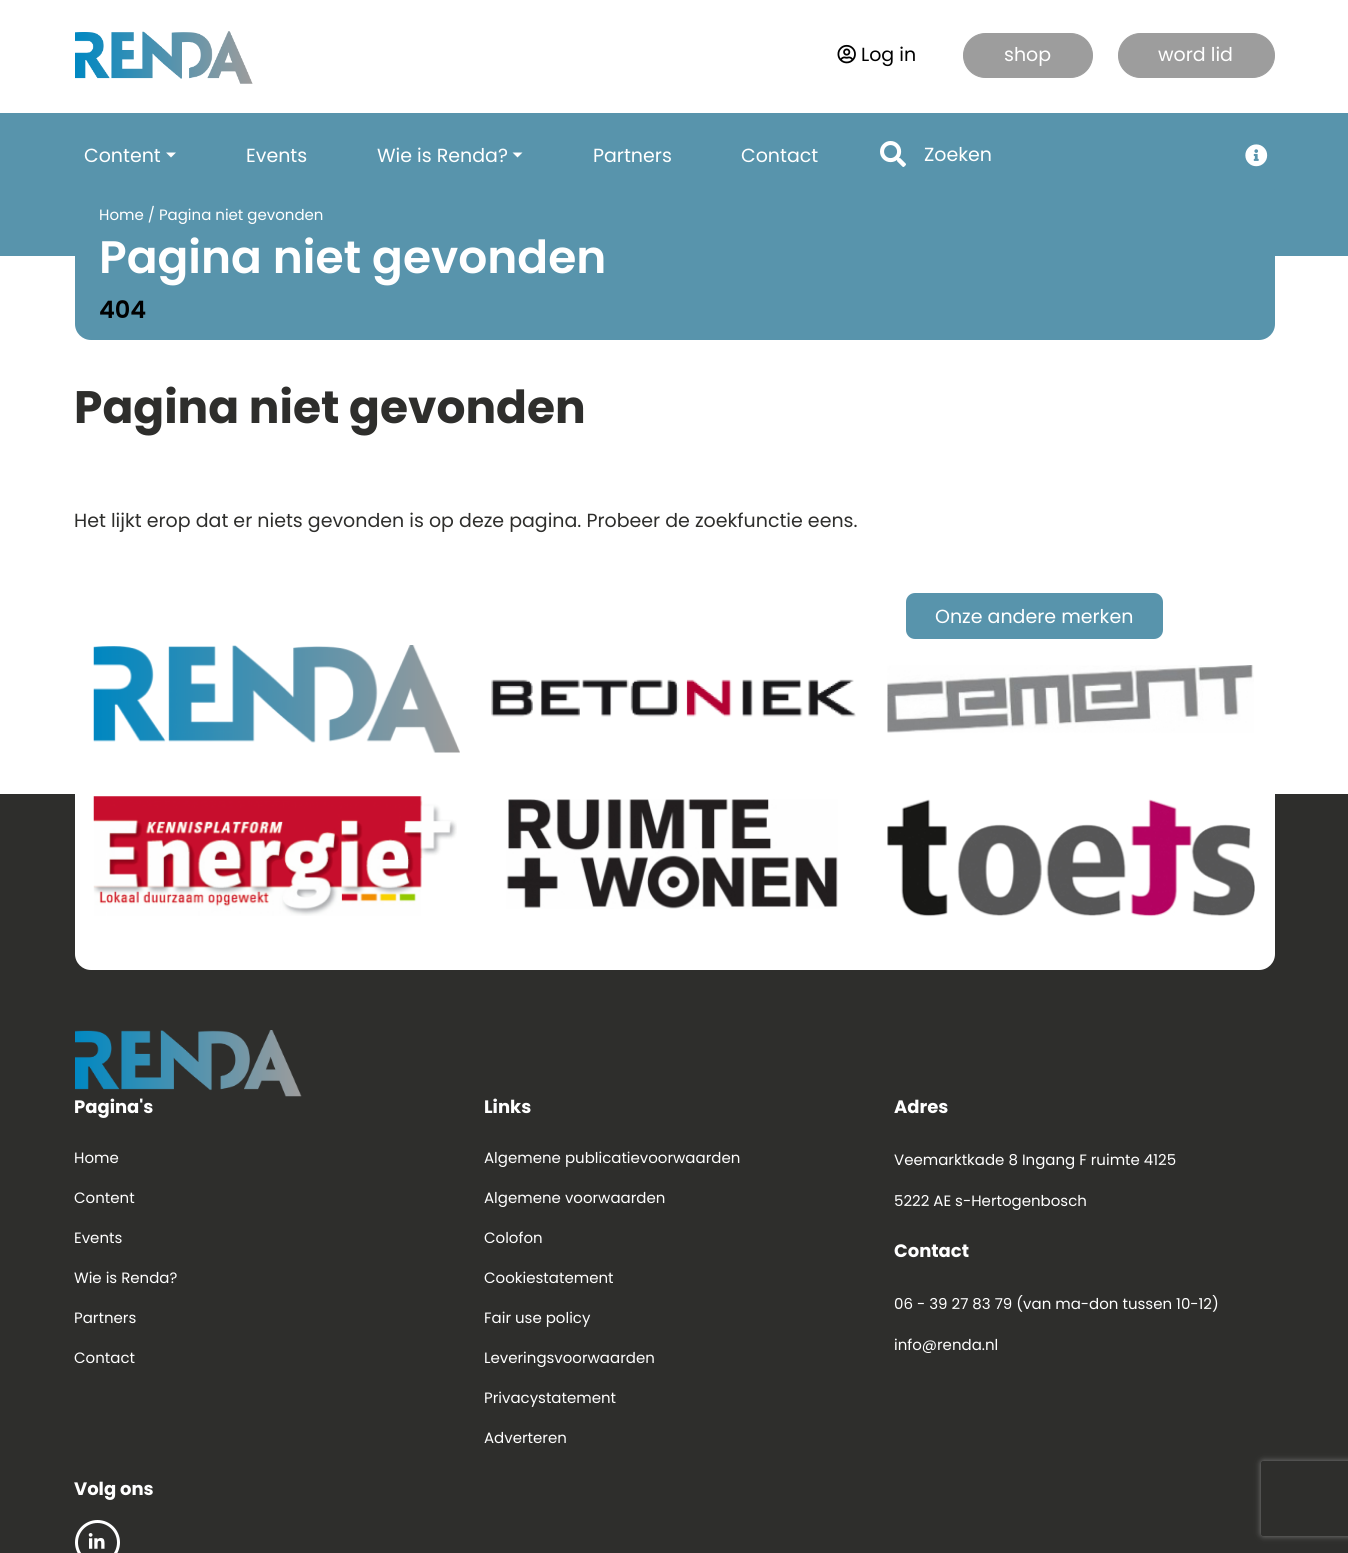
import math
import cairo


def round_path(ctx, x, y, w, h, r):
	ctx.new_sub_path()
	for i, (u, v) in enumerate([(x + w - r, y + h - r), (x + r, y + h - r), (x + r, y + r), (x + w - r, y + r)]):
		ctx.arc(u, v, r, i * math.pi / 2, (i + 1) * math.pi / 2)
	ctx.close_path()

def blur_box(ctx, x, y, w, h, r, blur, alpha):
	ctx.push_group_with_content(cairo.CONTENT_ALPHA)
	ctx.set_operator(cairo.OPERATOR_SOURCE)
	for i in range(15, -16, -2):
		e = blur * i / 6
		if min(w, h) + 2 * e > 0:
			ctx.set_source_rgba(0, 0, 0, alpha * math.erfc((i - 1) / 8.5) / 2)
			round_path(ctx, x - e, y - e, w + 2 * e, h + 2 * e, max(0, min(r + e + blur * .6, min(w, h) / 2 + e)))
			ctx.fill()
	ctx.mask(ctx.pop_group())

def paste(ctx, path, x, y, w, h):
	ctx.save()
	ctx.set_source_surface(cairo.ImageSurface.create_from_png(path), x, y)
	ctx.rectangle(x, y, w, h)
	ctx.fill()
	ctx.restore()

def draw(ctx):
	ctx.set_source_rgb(1, 1, 1)
	ctx.paint()
	paste(ctx, 'media/1.png', 75, 31, 178, 53)
	paste(ctx, 'media/2.png', 837, 44, 19, 20)
	ctx.select_font_face('Poppins')
	ctx.set_font_size(19)
	ctx.set_source_rgb(0, 0, 0)
	ctx.move_to(861, 61)
	ctx.show_text('Log in')
	ctx.set_source_rgb(0.616, 0.616, 0.616)
	round_path(ctx, 963.5, 33.5, 129, 44, 22)
	ctx.fill_preserve()
	ctx.set_line_width(1)
	ctx.stroke()
	ctx.set_source_rgb(1, 1, 1)
	ctx.move_to(1004, 61)
	ctx.show_text('shop')
	ctx.set_source_rgb(0.616, 0.616, 0.616)
	round_path(ctx, 1118.5, 33.5, 156, 44, 22)
	ctx.fill_preserve()
	ctx.stroke()
	ctx.set_source_rgb(1, 1, 1)
	ctx.move_to(1158, 61)
	ctx.show_text('word lid')
	ctx.set_source_rgb(0.345, 0.58, 0.675)
	ctx.rectangle(0, 113, 1348, 143)
	ctx.fill()
	ctx.set_source_rgb(1, 1, 1)
	ctx.move_to(84, 162)
	ctx.show_text('Content')
	ctx.new_path()
	ctx.move_to(166, 152.5)
	ctx.line_to(176, 152.5)
	ctx.line_to(171, 157.5)
	ctx.close_path()
	ctx.fill()
	ctx.move_to(246, 162)
	ctx.show_text('Events')
	ctx.move_to(377, 162)
	ctx.show_text('Wie is Renda?')
	ctx.new_path()
	ctx.move_to(512.5, 152.5)
	ctx.line_to(522.5, 152.5)
	ctx.line_to(517.5, 157.5)
	ctx.close_path()
	ctx.fill()
	ctx.move_to(593, 162)
	ctx.show_text('Partners')
	ctx.move_to(741, 162)
	ctx.show_text('Contact')
	paste(ctx, 'media/3.png', 880, 141, 26, 26)
	ctx.move_to(924, 161)
	ctx.show_text('Zoeken')
	paste(ctx, 'media/4.png', 1245, 144, 23, 23)
	ctx.set_source_rgb(0.345, 0.58, 0.675)
	round_path(ctx, 75, 176, 1200, 164, 16)
	ctx.fill()
	ctx.set_font_size(15)
	ctx.set_source_rgb(1, 1, 1)
	ctx.move_to(99, 220)
	ctx.show_text('Home / Pagina niet gevonden')
	ctx.select_font_face('Poppins SemiBold')
	ctx.set_font_size(45.5)
	ctx.move_to(99, 273)
	ctx.show_text('Pagina niet gevonden')
	ctx.set_font_size(24)
	ctx.set_source_rgb(0, 0, 0)
	ctx.move_to(99, 318)
	ctx.show_text('404')
	ctx.select_font_face('Poppins', cairo.FONT_SLANT_NORMAL, cairo.FONT_WEIGHT_BOLD)
	ctx.set_font_size(45.5)
	ctx.set_source_rgb(0.18, 0.18, 0.173)
	ctx.move_to(74, 423)
	ctx.show_text('Pagina niet gevonden')
	ctx.select_font_face('Poppins')
	ctx.set_font_size(19)
	ctx.move_to(74, 527)
	ctx.show_text('Het lijkt erop dat er niets gevonden is op deze pagina. Probeer de zoekfunctie eens.')
	ctx.rectangle(0, 794, 1348, 759)
	ctx.fill()
	ctx.set_source_rgb(1, 1, 1)
	round_path(ctx, 75, 616, 1200, 354, 16)
	ctx.fill()
	ctx.set_source_rgb(0.345, 0.58, 0.675)
	round_path(ctx, 906, 593, 257, 46, 9)
	ctx.fill()
	ctx.set_source_rgb(1, 1, 1)
	ctx.move_to(935, 623)
	ctx.show_text('Onze andere merken')
	paste(ctx, 'media/5.png', 93, 645, 367, 108)
	paste(ctx, 'media/6.png', 491, 679, 365, 38)
	paste(ctx, 'media/7.png', 887, 665, 367, 68)
	paste(ctx, 'media/8.png', 93, 796, 364, 120)
	paste(ctx, 'media/9.png', 506, 799, 332, 110)
	paste(ctx, 'media/10.png', 887, 799, 368, 118)
	paste(ctx, 'media/11.png', 75, 1030, 227, 67)
	ctx.select_font_face('Poppins', cairo.FONT_SLANT_NORMAL, cairo.FONT_WEIGHT_BOLD)
	ctx.set_font_size(18)
	ctx.move_to(74, 1113)
	ctx.show_text('Pagina\'s')
	ctx.select_font_face('Poppins')
	ctx.set_font_size(15)
	for x, y, s in [
		(74, 1163, 'Home'),
		(74, 1203, 'Content'),
		(74, 1243, 'Events'),
		(74, 1283, 'Wie is Renda?'),
		(74, 1323, 'Partners'),
		(74, 1363, 'Contact'),
	]:
		ctx.move_to(x, y)
		ctx.show_text(s)
	ctx.select_font_face('Poppins', cairo.FONT_SLANT_NORMAL, cairo.FONT_WEIGHT_BOLD)
	ctx.set_font_size(18)
	ctx.move_to(484, 1113)
	ctx.show_text('Links')
	ctx.select_font_face('Poppins')
	ctx.set_font_size(15)
	for x, y, s in [
		(484, 1163, 'Algemene publicatievoorwaarden'),
		(484, 1203, 'Algemene voorwaarden'),
		(484, 1243, 'Colofon'),
		(484, 1283, 'Cookiestatement'),
		(484, 1323, 'Fair use policy'),
		(484, 1363, 'Leveringsvoorwaarden'),
		(484, 1403, 'Privacystatement'),
		(484, 1443, 'Adverteren'),
	]:
		ctx.move_to(x, y)
		ctx.show_text(s)
	ctx.select_font_face('Poppins', cairo.FONT_SLANT_NORMAL, cairo.FONT_WEIGHT_BOLD)
	ctx.set_font_size(18)
	ctx.move_to(894, 1113)
	ctx.show_text('Adres')
	ctx.select_font_face('Poppins')
	ctx.set_font_size(15)
	ctx.move_to(894, 1165)
	ctx.show_text('Veemarktkade 8 Ingang F ruimte 4125')
	ctx.move_to(894, 1206)
	ctx.show_text('5222 AE s-Hertogenbosch')
	ctx.select_font_face('Poppins', cairo.FONT_SLANT_NORMAL, cairo.FONT_WEIGHT_BOLD)
	ctx.set_font_size(18)
	ctx.move_to(894, 1257)
	ctx.show_text('Contact')
	ctx.select_font_face('Poppins')
	ctx.set_font_size(15)
	ctx.move_to(894, 1309)
	ctx.show_text('06 - 39 27 83 79 (van ma-don tussen 10-12)')
	ctx.move_to(894, 1350)
	ctx.show_text('info@renda.nl')
	ctx.select_font_face('Poppins', cairo.FONT_SLANT_NORMAL, cairo.FONT_WEIGHT_BOLD)
	ctx.set_font_size(18)
	ctx.move_to(74, 1495)
	ctx.show_text('Volg ons')
	ctx.new_path()
	ctx.arc(97.5, 1542.5, 21, 0, 2 * math.pi)
	ctx.set_line_width(3)
	ctx.stroke()
	paste(ctx, 'media/12.png', 88, 1533, 17, 16)
	ctx.save()
	ctx.set_fill_rule(cairo.FILL_RULE_EVEN_ODD)
	ctx.new_path()
	ctx.move_to(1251, 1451)
	ctx.line_to(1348, 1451)
	ctx.line_to(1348, 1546)
	ctx.line_to(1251, 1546)
	ctx.close_path()
	ctx.move_to(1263.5, 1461)
	ctx.line_to(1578.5, 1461)
	ctx.curve_to(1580, 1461, 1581, 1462, 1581, 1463.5)
	ctx.line_to(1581, 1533.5)
	ctx.curve_to(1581, 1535, 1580, 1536, 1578.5, 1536)
	ctx.line_to(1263.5, 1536)
	ctx.curve_to(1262, 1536, 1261, 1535, 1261, 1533.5)
	ctx.line_to(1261, 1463.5)
	ctx.curve_to(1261, 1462, 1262, 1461, 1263.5, 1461)
	ctx.close_path()
	ctx.clip()
	ctx.set_source_rgb(0.502, 0.502, 0.502)
	blur_box(ctx, 1261, 1461, 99, 75, 2.5, 3, 1)
	ctx.restore()


surface = cairo.ImageSurface(cairo.FORMAT_RGB24, 1348, 1553)
ctx = cairo.Context(surface)
options = cairo.FontOptions()
options.set_hint_metrics(cairo.HINT_METRICS_OFF)
options.set_hint_style(cairo.HINT_STYLE_NONE)
ctx.set_font_options(options)
ctx.set_miter_limit(4)
draw(ctx)
surface.write_to_png('image.png')
